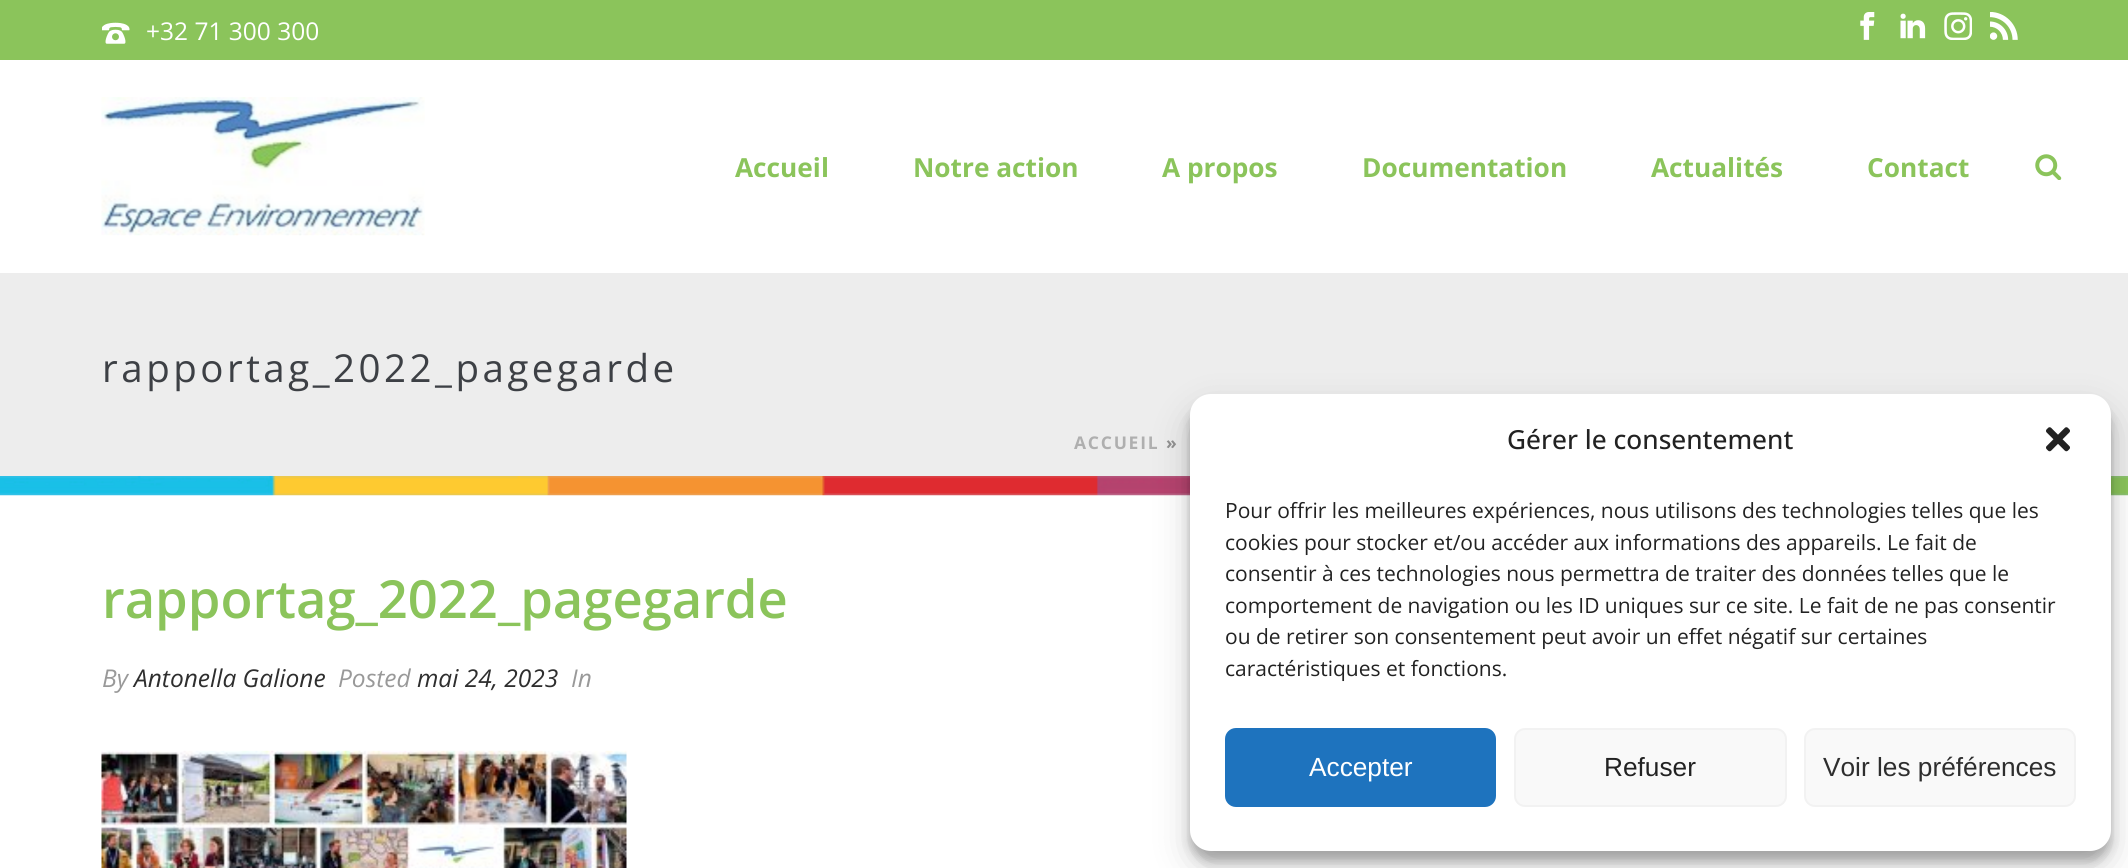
import math
import cairo


def write_spaced(ctx, x, y, s, letter, word):
	ctx.move_to(x, y)
	for ch in s:
		ctx.show_text(ch)
		ctx.rel_move_to(letter + word * (ch == ' '), 0)

def round_path(ctx, x, y, w, h, r):
	ctx.new_sub_path()
	for i, (u, v) in enumerate([(x + w - r, y + h - r), (x + r, y + h - r), (x + r, y + r), (x + w - r, y + r)]):
		ctx.arc(u, v, r, i * math.pi / 2, (i + 1) * math.pi / 2)
	ctx.close_path()

def blur_box(ctx, x, y, w, h, r, blur, alpha):
	ctx.push_group_with_content(cairo.CONTENT_ALPHA)
	ctx.set_operator(cairo.OPERATOR_SOURCE)
	for i in range(15, -16, -2):
		e = blur * i / 6
		if min(w, h) + 2 * e > 0:
			ctx.set_source_rgba(0, 0, 0, alpha * math.erfc((i - 1) / 8.5) / 2)
			round_path(ctx, x - e, y - e, w + 2 * e, h + 2 * e, max(0, min(r + e + blur * .6, min(w, h) / 2 + e)))
			ctx.fill()
	ctx.mask(ctx.pop_group())

def paste(ctx, path, x, y, w, h):
	ctx.save()
	ctx.set_source_surface(cairo.ImageSurface.create_from_png(path), x, y)
	ctx.rectangle(x, y, w, h)
	ctx.fill()
	ctx.restore()

def draw(ctx):
	ctx.set_source_rgb(1, 1, 1)
	ctx.paint()
	ctx.set_source_rgb(0.929, 0.929, 0.929)
	ctx.rectangle(0, 273, 2128, 203)
	ctx.fill()
	ctx.set_source_rgb(0.545, 0.769, 0.357)
	ctx.rectangle(0, 0, 2128, 60)
	ctx.fill()
	paste(ctx, 'media/1.png', 102, 22, 28, 22)
	ctx.select_font_face('Open Sans')
	ctx.set_font_size(24.5)
	ctx.set_source_rgb(1, 1, 1)
	ctx.move_to(146, 40)
	ctx.show_text('+32 71 300 300')
	paste(ctx, 'media/2.png', 1860, 12, 15, 28)
	paste(ctx, 'media/3.png', 1900, 13, 26, 26)
	paste(ctx, 'media/4.png', 1944, 12, 28, 28)
	paste(ctx, 'media/5.png', 1990, 12, 28, 28)
	paste(ctx, 'media/6.png', 101, 97, 324, 139)
	ctx.select_font_face('Open Sans', cairo.FONT_SLANT_NORMAL, cairo.FONT_WEIGHT_BOLD)
	ctx.set_font_size(26.25)
	ctx.set_source_rgb(0.545, 0.769, 0.357)
	for x, y, s in [
		(735, 177, 'Accueil'),
		(913, 177, 'Notre action'),
		(1162, 177, 'A propos'),
		(1362, 177, 'Documentation'),
		(1651, 177, 'Actualités'),
		(1867, 177, 'Contact'),
	]:
		ctx.move_to(x, y)
		ctx.show_text(s)
	paste(ctx, 'media/7.png', 2035, 154, 27, 26)
	ctx.select_font_face('Open Sans')
	ctx.set_font_size(38.5)
	ctx.set_source_rgb(0.239, 0.251, 0.271)
	write_spaced(ctx, 102, 382, 'rapportag_2022_pagegarde', 3.5, 0)
	ctx.select_font_face('Open Sans', cairo.FONT_SLANT_NORMAL, cairo.FONT_WEIGHT_BOLD)
	ctx.set_font_size(17.5)
	ctx.set_source_rgb(0.686, 0.686, 0.686)
	write_spaced(ctx, 1074, 449, 'ACCUEIL', 1.75, 0)
	ctx.set_source_rgb(0.569, 0.569, 0.569)
	write_spaced(ctx, 1166, 449, '»', 1.75, 0)
	paste(ctx, 'media/8.png', 0, 476, 2128, 20)
	ctx.select_font_face('Open Sans SemiBold')
	ctx.set_font_size(52.5)
	ctx.set_source_rgb(0.545, 0.769, 0.357)
	ctx.move_to(102, 618)
	ctx.show_text('rapportag_2022_pagegarde')
	ctx.select_font_face('Open Sans', cairo.FONT_SLANT_ITALIC)
	ctx.set_font_size(24.5)
	ctx.set_source_rgb(0.6, 0.6, 0.6)
	ctx.move_to(102, 687)
	ctx.show_text('By')
	ctx.set_source_rgb(0.18, 0.18, 0.18)
	ctx.move_to(134, 687)
	ctx.show_text('Antonella Galione')
	ctx.set_source_rgb(0.6, 0.6, 0.6)
	ctx.move_to(338, 687)
	ctx.show_text('Posted')
	ctx.set_source_rgb(0.18, 0.18, 0.18)
	ctx.move_to(417, 687)
	ctx.show_text('mai 24, 2023')
	ctx.set_source_rgb(0.6, 0.6, 0.6)
	ctx.move_to(571, 687)
	ctx.show_text('In')
	paste(ctx, 'media/9.png', 101, 750, 526, 118)
	ctx.set_source_rgb(0, 0, 0)
	blur_box(ctx, 1190, 404, 921, 457, 21, 5, 0.23)
	blur_box(ctx, 1190, 411, 921, 457, 21, 17.5, 0.19)
	ctx.set_source_rgb(1, 1, 1)
	round_path(ctx, 1190, 394, 921, 457, 21)
	ctx.fill()
	ctx.select_font_face('Open Sans Medium')
	ctx.set_font_size(26.25)
	ctx.set_source_rgb(0.133, 0.133, 0.133)
	ctx.move_to(1507, 449)
	ctx.show_text('Gérer le consentement')
	paste(ctx, 'media/10.png', 2046, 427, 24, 25)
	ctx.select_font_face('Open Sans')
	ctx.set_font_size(21)
	for x, y, s in [
		(1225, 518, 'Pour offrir les meilleures expériences, nous utilisons des technologies telles que les'),
		(1225, 550, 'cookies pour stocker et/ou accéder aux informations des appareils. Le fait de'),
		(1225, 581, 'consentir à ces technologies nous permettra de traiter des données telles que le'),
		(1225, 613, 'comportement de navigation ou les ID uniques sur ce site. Le fait de ne pas consentir'),
		(1225, 644, 'ou de retirer son consentement peut avoir un effet négatif sur certaines'),
		(1225, 676, 'caractéristiques et fonctions.'),
	]:
		ctx.move_to(x, y)
		ctx.show_text(s)
	ctx.set_source_rgb(0.118, 0.451, 0.745)
	round_path(ctx, 1226, 729, 269, 77, 10)
	ctx.fill_preserve()
	ctx.stroke()
	ctx.select_font_face('Liberation Sans')
	ctx.set_font_size(26.25)
	ctx.set_source_rgb(1, 1, 1)
	ctx.move_to(1309, 776)
	ctx.show_text('Accepter')
	ctx.set_source_rgb(0.976, 0.976, 0.976)
	round_path(ctx, 1515, 729, 271, 77, 10)
	ctx.fill_preserve()
	ctx.set_source_rgb(0.949, 0.949, 0.949)
	ctx.stroke()
	ctx.set_source_rgb(0.133, 0.133, 0.133)
	ctx.move_to(1604, 776)
	ctx.show_text('Refuser')
	ctx.set_source_rgb(0.976, 0.976, 0.976)
	round_path(ctx, 1805, 729, 270, 77, 10)
	ctx.fill_preserve()
	ctx.set_source_rgb(0.949, 0.949, 0.949)
	ctx.stroke()
	ctx.set_source_rgb(0.18, 0.18, 0.18)
	ctx.move_to(1823, 776)
	ctx.show_text('Voir les préférences')


surface = cairo.ImageSurface(cairo.FORMAT_RGB24, 2128, 868)
ctx = cairo.Context(surface)
options = cairo.FontOptions()
options.set_hint_metrics(cairo.HINT_METRICS_OFF)
options.set_hint_style(cairo.HINT_STYLE_NONE)
ctx.set_font_options(options)
ctx.set_miter_limit(4)
draw(ctx)
surface.write_to_png('image.png')
